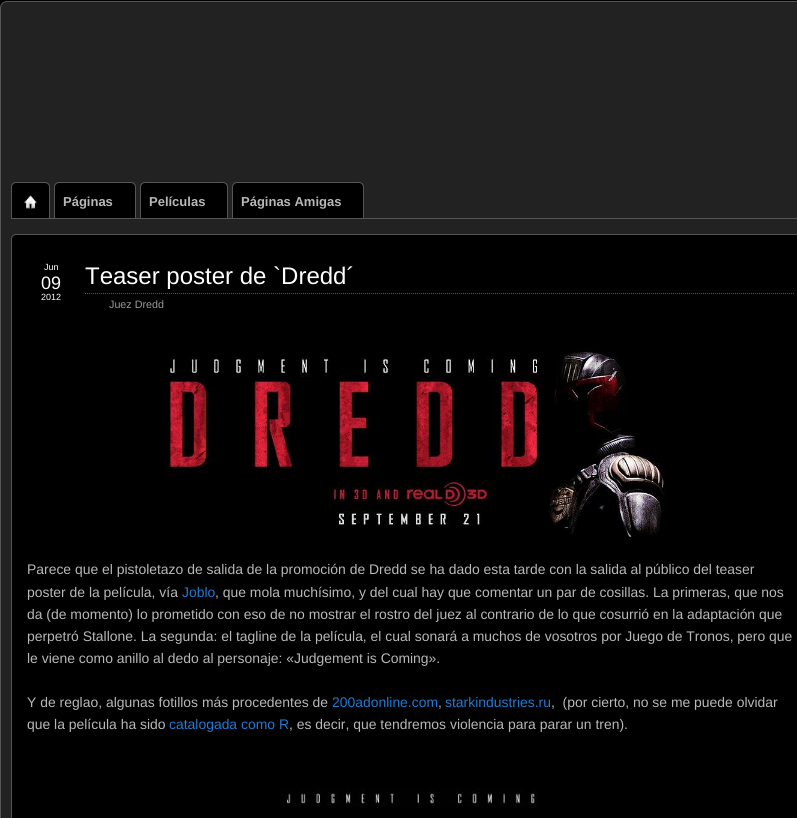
import math
import cairo


def round_path(ctx, x, y, w, h, r):
	ctx.new_sub_path()
	for i, (u, v) in enumerate([(x + w - r, y + h - r), (x + r, y + h - r), (x + r, y + r), (x + w - r, y + r)]):
		ctx.arc(u, v, r, i * math.pi / 2, (i + 1) * math.pi / 2)
	ctx.close_path()

def paste(ctx, path, x, y, w, h):
	ctx.save()
	ctx.set_source_surface(cairo.ImageSurface.create_from_png(path), x, y)
	ctx.rectangle(x, y, w, h)
	ctx.fill()
	ctx.restore()

def draw(ctx):
	ctx.set_source_rgb(0, 0, 0)
	ctx.paint()
	ctx.set_source_rgb(0.133, 0.133, 0.133)
	round_path(ctx, 0.5, 1.5, 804, 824, 6.5)
	ctx.fill_preserve()
	ctx.set_source_rgb(0.333, 0.333, 0.333)
	ctx.set_line_width(1)
	ctx.stroke()
	ctx.rectangle(50, 218, 747, 1)
	ctx.fill()
	ctx.new_path()
	ctx.move_to(16, 182.5)
	ctx.line_to(45, 182.5)
	ctx.curve_to(47.5, 182.5, 49.5, 184.5, 49.5, 187)
	ctx.line_to(49.5, 218.5)
	ctx.line_to(11.5, 218.5)
	ctx.line_to(11.5, 187)
	ctx.curve_to(11.5, 184.5, 13.5, 182.5, 16, 182.5)
	ctx.close_path()
	ctx.stroke()
	ctx.set_source_rgb(0, 0, 0)
	ctx.new_path()
	ctx.move_to(17, 183)
	ctx.line_to(44, 183)
	ctx.curve_to(47, 183, 49, 185, 49, 188)
	ctx.line_to(49, 218)
	ctx.line_to(12, 218)
	ctx.line_to(12, 188)
	ctx.curve_to(12, 185, 14, 183, 17, 183)
	ctx.close_path()
	ctx.fill()
	paste(ctx, 'media/1.png', 24, 195, 13, 14)
	ctx.new_path()
	ctx.move_to(59, 182.5)
	ctx.line_to(131, 182.5)
	ctx.curve_to(133.5, 182.5, 135.5, 184.5, 135.5, 187)
	ctx.line_to(135.5, 218.5)
	ctx.line_to(54.5, 218.5)
	ctx.line_to(54.5, 187)
	ctx.curve_to(54.5, 184.5, 56.5, 182.5, 59, 182.5)
	ctx.close_path()
	ctx.set_source_rgb(0.333, 0.333, 0.333)
	ctx.stroke()
	ctx.set_source_rgb(0, 0, 0)
	ctx.new_path()
	ctx.move_to(60, 183)
	ctx.line_to(130, 183)
	ctx.curve_to(133, 183, 135, 185, 135, 188)
	ctx.line_to(135, 218)
	ctx.line_to(55, 218)
	ctx.line_to(55, 188)
	ctx.curve_to(55, 185, 57, 183, 60, 183)
	ctx.close_path()
	ctx.fill()
	ctx.select_font_face('Liberation Sans', cairo.FONT_SLANT_NORMAL, cairo.FONT_WEIGHT_BOLD)
	ctx.set_font_size(13)
	ctx.set_source_rgb(0.722, 0.722, 0.722)
	ctx.move_to(63, 206)
	ctx.show_text('Páginas')
	ctx.new_path()
	ctx.move_to(145, 182.5)
	ctx.line_to(223, 182.5)
	ctx.curve_to(225.5, 182.5, 227.5, 184.5, 227.5, 187)
	ctx.line_to(227.5, 218.5)
	ctx.line_to(140.5, 218.5)
	ctx.line_to(140.5, 187)
	ctx.curve_to(140.5, 184.5, 142.5, 182.5, 145, 182.5)
	ctx.close_path()
	ctx.set_source_rgb(0.333, 0.333, 0.333)
	ctx.stroke()
	ctx.set_source_rgb(0, 0, 0)
	ctx.new_path()
	ctx.move_to(146, 183)
	ctx.line_to(222, 183)
	ctx.curve_to(225, 183, 227, 185, 227, 188)
	ctx.line_to(227, 218)
	ctx.line_to(141, 218)
	ctx.line_to(141, 188)
	ctx.curve_to(141, 185, 143, 183, 146, 183)
	ctx.close_path()
	ctx.fill()
	ctx.set_source_rgb(0.722, 0.722, 0.722)
	ctx.move_to(149, 206)
	ctx.show_text('Películas')
	ctx.new_path()
	ctx.move_to(237, 182.5)
	ctx.line_to(359, 182.5)
	ctx.curve_to(361.5, 182.5, 363.5, 184.5, 363.5, 187)
	ctx.line_to(363.5, 218.5)
	ctx.line_to(232.5, 218.5)
	ctx.line_to(232.5, 187)
	ctx.curve_to(232.5, 184.5, 234.5, 182.5, 237, 182.5)
	ctx.close_path()
	ctx.set_source_rgb(0.333, 0.333, 0.333)
	ctx.stroke()
	ctx.set_source_rgb(0, 0, 0)
	ctx.new_path()
	ctx.move_to(238, 183)
	ctx.line_to(358, 183)
	ctx.curve_to(361, 183, 363, 185, 363, 188)
	ctx.line_to(363, 218)
	ctx.line_to(233, 218)
	ctx.line_to(233, 188)
	ctx.curve_to(233, 185, 235, 183, 238, 183)
	ctx.close_path()
	ctx.fill()
	ctx.set_source_rgb(0.722, 0.722, 0.722)
	ctx.move_to(241, 206)
	ctx.show_text('Páginas Amigas')
	ctx.set_source_rgb(0, 0, 0)
	round_path(ctx, 11.5, 234.5, 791, 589, 4.5)
	ctx.fill_preserve()
	ctx.set_source_rgb(0.333, 0.333, 0.333)
	ctx.stroke()
	ctx.select_font_face('Liberation Sans')
	ctx.set_font_size(9)
	ctx.set_source_rgb(1, 1, 1)
	ctx.move_to(44, 270)
	ctx.show_text('Jun')
	ctx.set_font_size(18)
	ctx.move_to(41, 289)
	ctx.show_text('09')
	ctx.set_font_size(9)
	ctx.move_to(41, 300)
	ctx.show_text('2012')
	ctx.new_path()
	ctx.move_to(85, 293.5)
	ctx.line_to(795, 293.5)
	ctx.set_source_rgb(0.333, 0.333, 0.333)
	ctx.set_dash([1, 1])
	ctx.stroke()
	ctx.set_font_size(24)
	ctx.set_source_rgb(1, 1, 1)
	ctx.move_to(85, 284)
	ctx.show_text('Teaser poster de `Dredd´')
	ctx.set_font_size(10.75)
	ctx.set_source_rgb(0.6, 0.6, 0.6)
	ctx.move_to(109, 308)
	ctx.show_text('Juez Dredd')
	paste(ctx, 'media/2.png', 166, 348, 499, 189)
	ctx.set_font_size(13.92)
	ctx.set_source_rgb(0.722, 0.722, 0.722)
	ctx.move_to(27, 574)
	ctx.show_text('Parece que el pistoletazo de salida de la promoción de Dredd se ha dado esta tarde con la salida al público del teaser')
	ctx.move_to(27, 597)
	ctx.show_text('poster de la película, vía')
	ctx.set_source_rgb(0.133, 0.478, 0.82)
	ctx.move_to(182, 597)
	ctx.show_text('Joblo')
	ctx.set_source_rgb(0.722, 0.722, 0.722)
	for x, y, s in [
		(215, 597, ', que mola muchísimo, y del cual hay que comentar un par de cosillas. La primeras, que nos'),
		(27, 619, 'da (de momento) lo prometido con eso de no mostrar el rostro del juez al contrario de lo que cosurrió en la adaptación que'),
		(27, 641, 'perpetró Stallone. La segunda: el tagline de la película, el cual sonará a muchos de vosotros por Juego de Tronos, pero que'),
		(27, 663, 'le viene como anillo al dedo al personaje: «Judgement is Coming».'),
		(27, 707, 'Y de reglao, algunas fotillos más procedentes de'),
	]:
		ctx.move_to(x, y)
		ctx.show_text(s)
	ctx.set_source_rgb(0.133, 0.478, 0.82)
	ctx.move_to(332, 707)
	ctx.show_text('200adonline.com')
	ctx.set_source_rgb(0.722, 0.722, 0.722)
	ctx.move_to(438, 707)
	ctx.show_text(',')
	ctx.set_source_rgb(0.133, 0.478, 0.82)
	ctx.move_to(445, 707)
	ctx.show_text('starkindustries.ru')
	ctx.set_source_rgb(0.722, 0.722, 0.722)
	ctx.move_to(551, 707)
	ctx.show_text(',  (por cierto, no se me puede olvidar')
	ctx.move_to(27, 729)
	ctx.show_text('que la película ha sido')
	ctx.set_source_rgb(0.133, 0.478, 0.82)
	ctx.move_to(169, 729)
	ctx.show_text('catalogada como R')
	ctx.set_source_rgb(0.722, 0.722, 0.722)
	ctx.move_to(289, 729)
	ctx.show_text(', es decir, que tendremos violencia para parar un tren).')
	paste(ctx, 'media/3.png', 282, 788, 256, 19)


surface = cairo.ImageSurface(cairo.FORMAT_RGB24, 797, 818)
ctx = cairo.Context(surface)
options = cairo.FontOptions()
options.set_hint_metrics(cairo.HINT_METRICS_OFF)
options.set_hint_style(cairo.HINT_STYLE_NONE)
ctx.set_font_options(options)
ctx.set_miter_limit(4)
draw(ctx)
surface.write_to_png('image.png')
